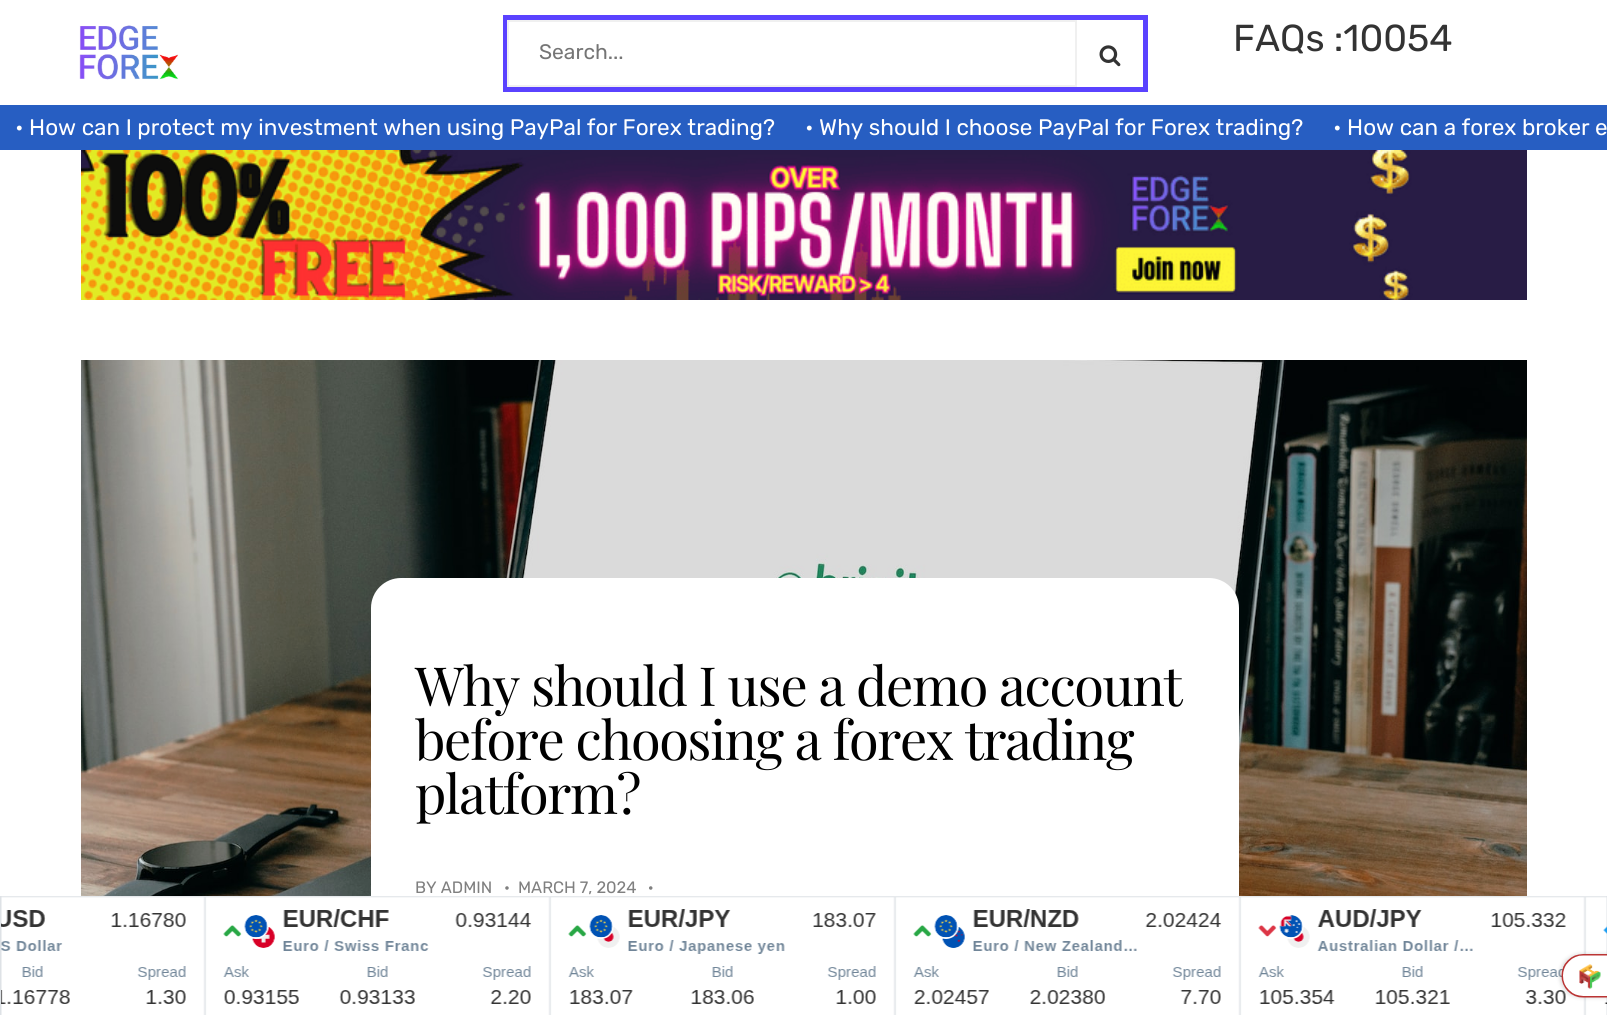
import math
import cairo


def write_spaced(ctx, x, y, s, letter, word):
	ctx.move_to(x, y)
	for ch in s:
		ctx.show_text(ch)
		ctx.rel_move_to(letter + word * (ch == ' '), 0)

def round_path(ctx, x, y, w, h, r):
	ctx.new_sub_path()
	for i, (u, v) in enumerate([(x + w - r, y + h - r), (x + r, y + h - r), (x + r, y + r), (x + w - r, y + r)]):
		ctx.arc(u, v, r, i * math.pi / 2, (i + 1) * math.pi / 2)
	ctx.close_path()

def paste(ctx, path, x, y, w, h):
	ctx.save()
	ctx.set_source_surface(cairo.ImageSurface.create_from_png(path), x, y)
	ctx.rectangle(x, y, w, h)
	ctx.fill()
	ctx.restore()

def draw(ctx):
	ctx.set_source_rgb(1, 1, 1)
	ctx.paint()
	paste(ctx, 'media/1.png', 79, 25, 100, 55)
	ctx.rectangle(505.5, 17.5, 640, 72)
	ctx.set_source_rgb(0.353, 0.259, 1)
	ctx.set_line_width(5)
	ctx.stroke()
	ctx.rectangle(508, 21, 568, 65)
	ctx.set_source_rgb(0.941, 0.941, 0.941)
	ctx.set_line_width(2)
	ctx.stroke()
	ctx.select_font_face('Rubik')
	ctx.set_font_size(21)
	ctx.set_source_rgb(0.459, 0.459, 0.459)
	ctx.move_to(539, 59)
	ctx.show_text('Search...')
	paste(ctx, 'media/2.png', 1099, 45, 22, 22)
	ctx.set_font_size(37.5)
	ctx.set_source_rgb(0.2, 0.2, 0.2)
	ctx.move_to(1233, 51)
	ctx.show_text('FAQs :10054')
	ctx.set_source_rgb(0.153, 0.369, 0.761)
	ctx.rectangle(0, 105, 1607, 45)
	ctx.fill()
	ctx.set_font_size(22.5)
	ctx.set_source_rgb(1, 1, 1)
	for x, y, s in [
		(15, 135, '• How can I protect my investment when using PayPal for Forex trading?'),
		(805, 135, '• Why should I choose PayPal for Forex trading?'),
		(1333, 135, '• How can a forex broker e'),
	]:
		ctx.move_to(x, y)
		ctx.show_text(s)
	paste(ctx, 'media/3.png', 81, 150, 1446, 150)
	paste(ctx, 'media/4.png', 81, 360, 1446, 536)
	round_path(ctx, 371, 578, 868, 378, 30)
	ctx.fill()
	ctx.select_font_face('Playfair Display')
	ctx.set_font_size(54)
	ctx.set_source_rgb(0, 0, 0)
	for x, y, s in [
		(415, 706, 'Why should I use a demo account'),
		(415, 760, 'before choosing a forex trading'),
		(415, 814, 'platform?'),
	]:
		write_spaced(ctx, x, y, s, -1.35, 0)
	ctx.select_font_face('Rubik')
	ctx.set_font_size(16.5)
	ctx.set_source_rgb(0.502, 0.502, 0.502)
	for x, y, s in [
		(415, 893, 'BY ADMIN   ·'),
		(518, 893, 'MARCH 7, 2024'),
		(648, 893, '·'),
	]:
		ctx.move_to(x, y)
		ctx.show_text(s)
	paste(ctx, 'media/5.png', 0, 896, 1607, 119)


surface = cairo.ImageSurface(cairo.FORMAT_RGB24, 1607, 1015)
ctx = cairo.Context(surface)
options = cairo.FontOptions()
options.set_hint_metrics(cairo.HINT_METRICS_OFF)
options.set_hint_style(cairo.HINT_STYLE_NONE)
ctx.set_font_options(options)
ctx.set_miter_limit(4)
draw(ctx)
surface.write_to_png('image.png')
